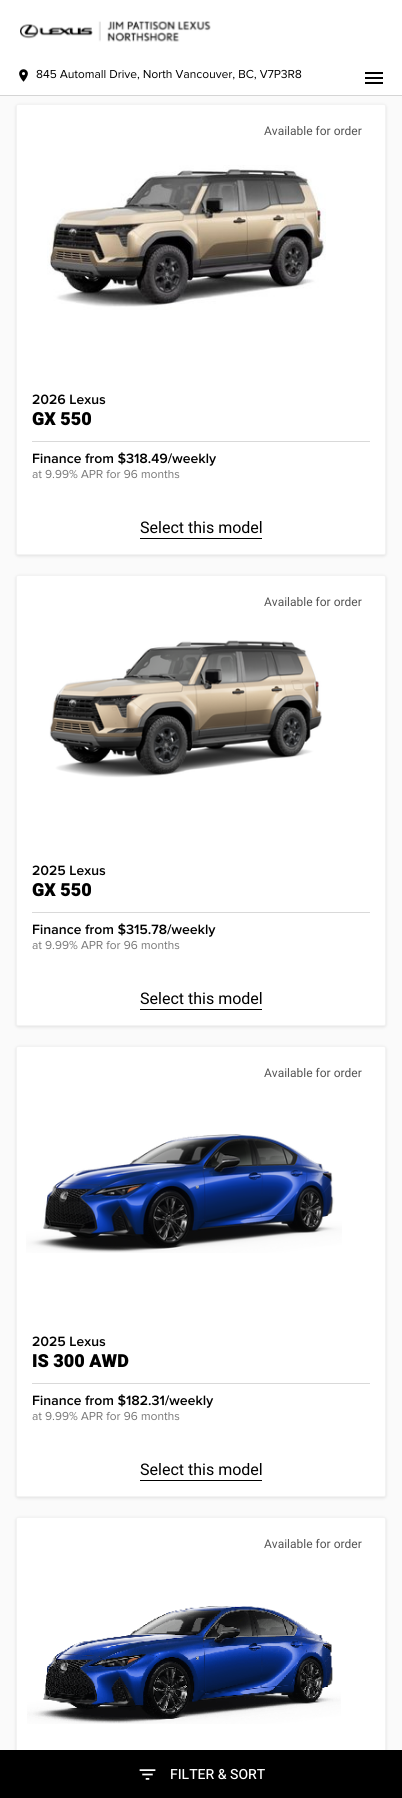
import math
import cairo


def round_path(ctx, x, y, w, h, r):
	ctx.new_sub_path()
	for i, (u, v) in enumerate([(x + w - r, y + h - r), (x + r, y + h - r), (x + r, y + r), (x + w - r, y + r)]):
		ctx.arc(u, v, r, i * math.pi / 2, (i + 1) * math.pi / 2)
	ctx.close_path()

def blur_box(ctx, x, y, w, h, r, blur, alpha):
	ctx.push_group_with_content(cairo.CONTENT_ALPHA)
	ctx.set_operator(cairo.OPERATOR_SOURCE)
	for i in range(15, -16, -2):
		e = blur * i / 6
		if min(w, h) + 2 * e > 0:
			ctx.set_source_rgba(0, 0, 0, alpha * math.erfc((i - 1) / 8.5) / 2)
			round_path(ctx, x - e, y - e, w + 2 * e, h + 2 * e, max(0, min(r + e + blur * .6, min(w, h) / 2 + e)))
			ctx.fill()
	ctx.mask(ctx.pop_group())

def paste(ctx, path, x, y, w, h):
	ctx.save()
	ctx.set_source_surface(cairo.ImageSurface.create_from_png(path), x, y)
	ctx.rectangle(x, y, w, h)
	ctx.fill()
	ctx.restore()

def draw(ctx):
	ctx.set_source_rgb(0.98, 0.98, 0.98)
	ctx.paint()
	ctx.set_source_rgb(0.835, 0.835, 0.835)
	ctx.rectangle(0, 95, 402, 1)
	ctx.fill()
	ctx.set_source_rgb(1, 1, 1)
	ctx.rectangle(0, 0, 402, 95)
	ctx.fill()
	paste(ctx, 'media/1.png', 20, 21, 191, 21)
	paste(ctx, 'media/2.png', 19, 69, 9, 13)
	paste(ctx, 'media/3.png', 36, 69, 266, 11)
	paste(ctx, 'media/4.png', 365, 72, 18, 12)
	ctx.set_source_rgb(0, 0, 0)
	blur_box(ctx, 16, 105, 370, 451, 2, 1.5, 0.1)
	ctx.set_source_rgb(1, 1, 1)
	round_path(ctx, 16.5, 104.5, 369, 450, 1.5)
	ctx.fill_preserve()
	ctx.set_source_rgb(0.953, 0.953, 0.953)
	ctx.set_line_width(1)
	ctx.stroke()
	ctx.select_font_face('Heebo')
	ctx.set_font_size(12)
	ctx.set_source_rgb(0.329, 0.329, 0.329)
	ctx.move_to(264, 135)
	ctx.show_text('Available for order')
	paste(ctx, 'media/5.png', 47, 165, 279, 145)
	paste(ctx, 'media/6.png', 32, 394, 74, 11)
	ctx.select_font_face('Heebo Black')
	ctx.set_font_size(18)
	ctx.set_source_rgb(0, 0, 0)
	ctx.move_to(32, 425)
	ctx.show_text('GX 550')
	ctx.set_source_rgb(0.851, 0.851, 0.851)
	ctx.rectangle(32, 441, 338, 1)
	ctx.fill()
	paste(ctx, 'media/7.png', 33, 452, 183, 14)
	paste(ctx, 'media/8.png', 32, 469, 148, 10)
	ctx.select_font_face('Heebo')
	ctx.set_font_size(16)
	ctx.set_source_rgb(0, 0, 0)
	ctx.move_to(140, 533)
	ctx.show_text('Select this model')
	ctx.rectangle(140, 538, 122, 1)
	ctx.fill()
	ctx.set_source_rgb(0, 0, 0)
	blur_box(ctx, 16, 576, 370, 451, 2, 1.5, 0.1)
	ctx.set_source_rgb(1, 1, 1)
	round_path(ctx, 16.5, 575.5, 369, 450, 1.5)
	ctx.fill_preserve()
	ctx.set_source_rgb(0.953, 0.953, 0.953)
	ctx.stroke()
	ctx.set_font_size(12)
	ctx.set_source_rgb(0.329, 0.329, 0.329)
	ctx.move_to(264, 606)
	ctx.show_text('Available for order')
	paste(ctx, 'media/9.png', 49, 640, 273, 138)
	paste(ctx, 'media/10.png', 32, 865, 74, 11)
	ctx.select_font_face('Heebo Black')
	ctx.set_font_size(18)
	ctx.set_source_rgb(0, 0, 0)
	ctx.move_to(32, 896)
	ctx.show_text('GX 550')
	ctx.set_source_rgb(0.851, 0.851, 0.851)
	ctx.rectangle(32, 912, 338, 1)
	ctx.fill()
	paste(ctx, 'media/11.png', 33, 923, 183, 14)
	paste(ctx, 'media/8.png', 32, 940, 148, 10)
	ctx.select_font_face('Heebo')
	ctx.set_font_size(16)
	ctx.set_source_rgb(0, 0, 0)
	ctx.move_to(140, 1004)
	ctx.show_text('Select this model')
	ctx.rectangle(140, 1009, 122, 1)
	ctx.fill()
	ctx.set_source_rgb(0, 0, 0)
	blur_box(ctx, 16, 1047, 370, 451, 2, 1.5, 0.1)
	ctx.set_source_rgb(1, 1, 1)
	round_path(ctx, 16.5, 1046.5, 369, 450, 1.5)
	ctx.fill_preserve()
	ctx.set_source_rgb(0.953, 0.953, 0.953)
	ctx.stroke()
	ctx.set_font_size(12)
	ctx.set_source_rgb(0.329, 0.329, 0.329)
	ctx.move_to(264, 1077)
	ctx.show_text('Available for order')
	paste(ctx, 'media/12.png', 26, 1134, 316, 119)
	paste(ctx, 'media/10.png', 32, 1336, 74, 11)
	ctx.select_font_face('Heebo Black')
	ctx.set_font_size(18)
	ctx.set_source_rgb(0, 0, 0)
	ctx.move_to(32, 1367)
	ctx.show_text('IS 300 AWD')
	ctx.set_source_rgb(0.851, 0.851, 0.851)
	ctx.rectangle(32, 1383, 338, 1)
	ctx.fill()
	paste(ctx, 'media/13.png', 33, 1394, 181, 14)
	paste(ctx, 'media/8.png', 32, 1411, 148, 10)
	ctx.select_font_face('Heebo')
	ctx.set_font_size(16)
	ctx.set_source_rgb(0, 0, 0)
	ctx.move_to(140, 1475)
	ctx.show_text('Select this model')
	ctx.rectangle(140, 1480, 122, 1)
	ctx.fill()
	ctx.set_source_rgb(0, 0, 0)
	blur_box(ctx, 16, 1518, 370, 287, 2, 1.5, 0.1)
	ctx.set_source_rgb(1, 1, 1)
	round_path(ctx, 16.5, 1517.5, 369, 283, 1.5)
	ctx.fill_preserve()
	ctx.set_source_rgb(0.953, 0.953, 0.953)
	ctx.stroke()
	ctx.set_font_size(12)
	ctx.set_source_rgb(0.329, 0.329, 0.329)
	ctx.move_to(264, 1548)
	ctx.show_text('Available for order')
	paste(ctx, 'media/14.png', 27, 1606, 314, 118)
	ctx.set_source_rgb(0, 0, 0)
	ctx.rectangle(0, 1750, 402, 48)
	ctx.fill()
	paste(ctx, 'media/15.png', 139, 1769, 17, 11)
	ctx.select_font_face('Heebo Medium')
	ctx.set_font_size(14)
	ctx.set_source_rgb(1, 1, 1)
	ctx.move_to(170, 1779)
	ctx.show_text('FILTER & SORT')


surface = cairo.ImageSurface(cairo.FORMAT_RGB24, 402, 1798)
ctx = cairo.Context(surface)
options = cairo.FontOptions()
options.set_hint_metrics(cairo.HINT_METRICS_OFF)
options.set_hint_style(cairo.HINT_STYLE_NONE)
ctx.set_font_options(options)
ctx.set_miter_limit(4)
draw(ctx)
surface.write_to_png('image.png')
